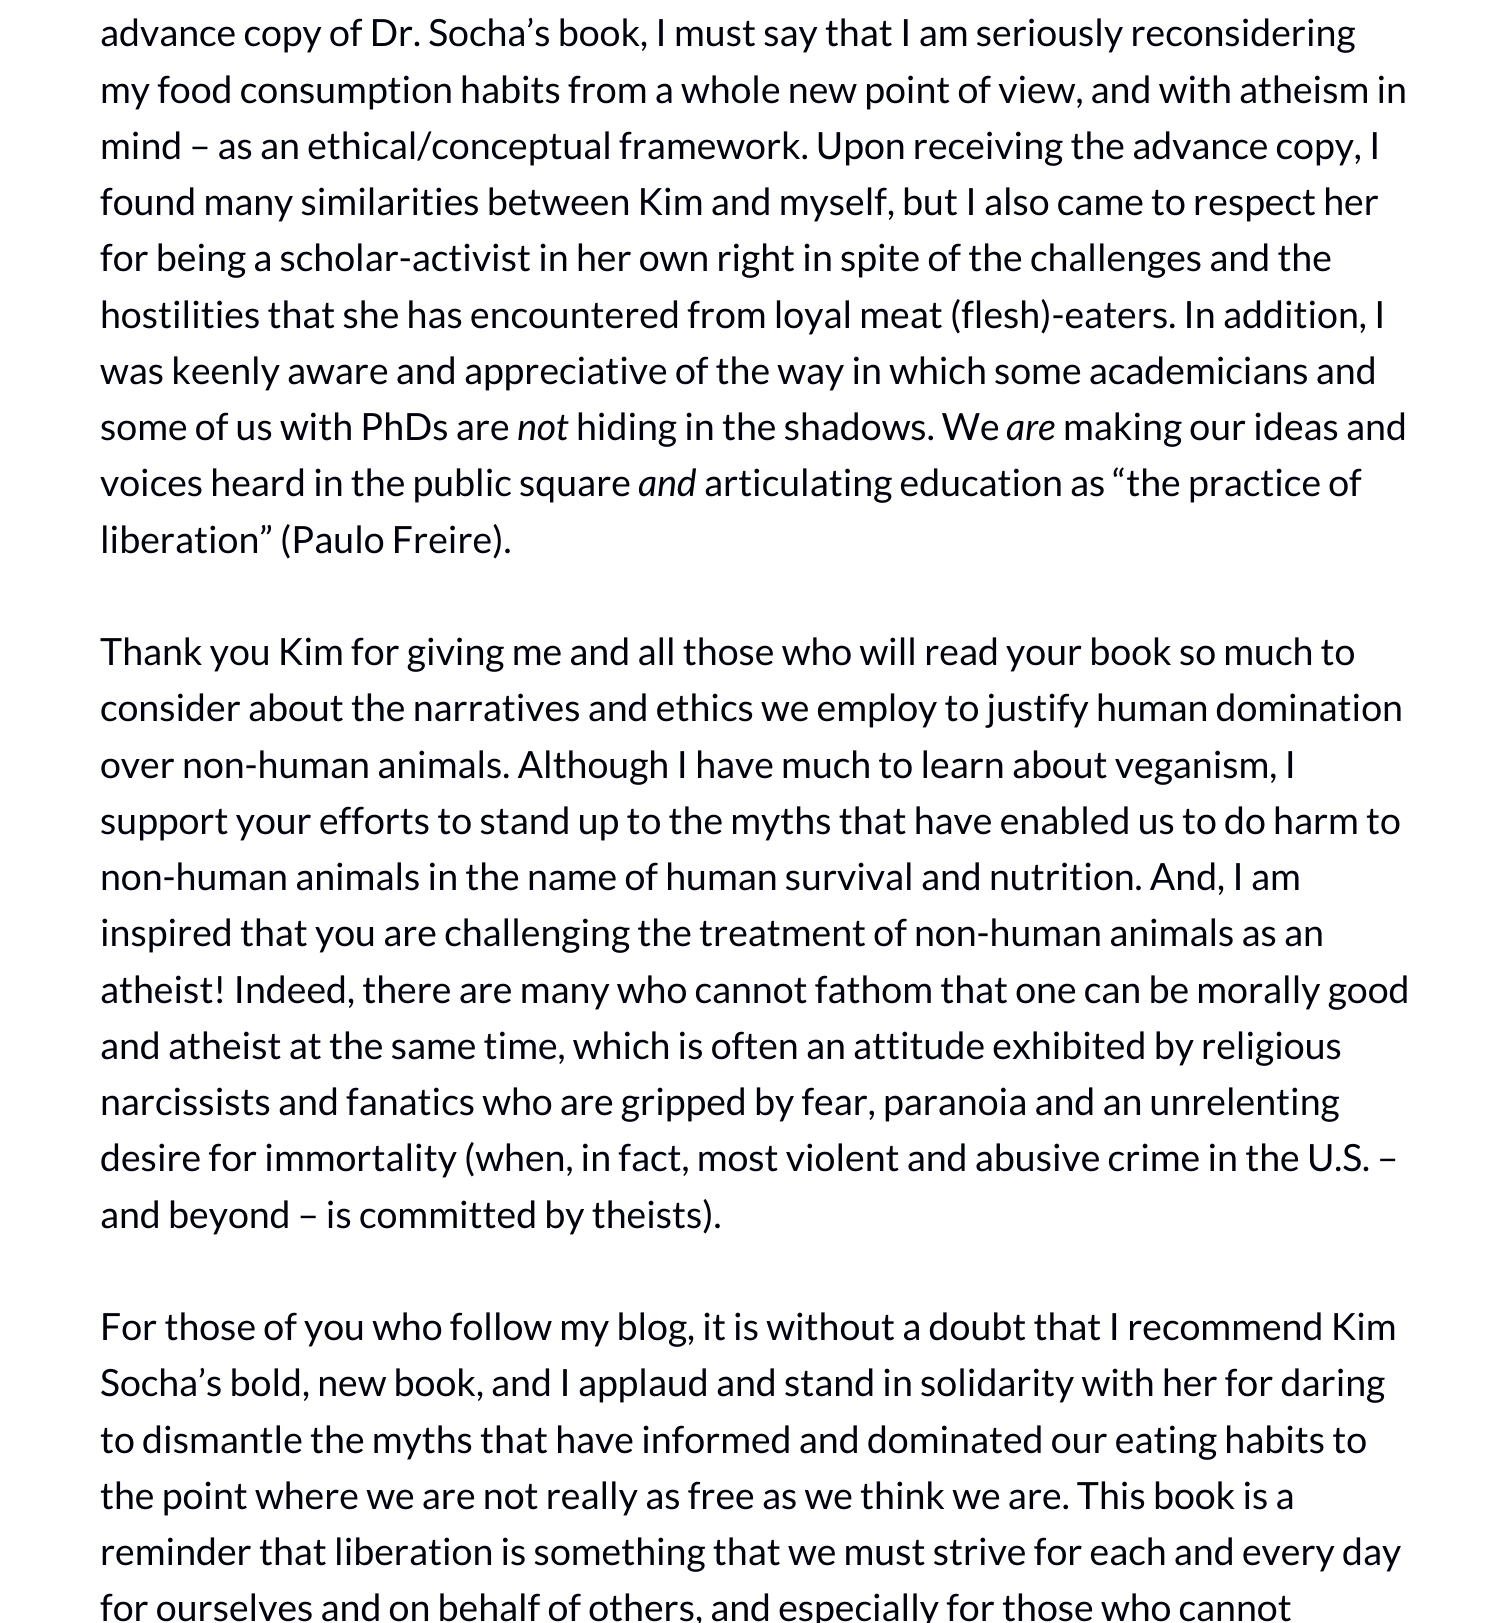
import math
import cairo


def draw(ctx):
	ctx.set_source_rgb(1, 1, 1)
	ctx.paint()
	ctx.select_font_face('Lato')
	ctx.set_font_size(37.5)
	ctx.set_source_rgb(0, 0.008, 0.055)
	for x, y, s in [
		(100, 46, 'advance copy of Dr. Socha’s book, I must say that I am seriously reconsidering'),
		(100, 103, 'my food consumption habits from a whole new point of view, and with atheism in'),
		(100, 159, 'mind – as an ethical/conceptual framework. Upon receiving the advance copy, I'),
		(100, 215, 'found many similarities between Kim and myself, but I also came to respect her'),
		(100, 271, 'for being a scholar-activist in her own right in spite of the challenges and the'),
		(100, 328, 'hostilities that she has encountered from loyal meat (flesh)-eaters. In addition, I'),
		(100, 384, 'was keenly aware and appreciative of the way in which some academicians and'),
		(100, 440, 'some of us with PhDs are'),
	]:
		ctx.move_to(x, y)
		ctx.show_text(s)
	ctx.select_font_face('Lato', cairo.FONT_SLANT_ITALIC)
	ctx.move_to(517, 440)
	ctx.show_text('not')
	ctx.select_font_face('Lato')
	ctx.move_to(576, 440)
	ctx.show_text('hiding in the shadows. We')
	ctx.select_font_face('Lato', cairo.FONT_SLANT_ITALIC)
	ctx.move_to(1006, 440)
	ctx.show_text('are')
	ctx.select_font_face('Lato')
	ctx.move_to(1063, 440)
	ctx.show_text('making our ideas and')
	ctx.move_to(100, 496)
	ctx.show_text('voices heard in the public square')
	ctx.select_font_face('Lato', cairo.FONT_SLANT_ITALIC)
	ctx.move_to(638, 496)
	ctx.show_text('and')
	ctx.select_font_face('Lato')
	for x, y, s in [
		(704, 496, 'articulating education as “the practice of'),
		(100, 553, 'liberation” (Paulo Freire).'),
		(100, 665, 'Thank you Kim for giving me and all those who will read your book so much to'),
		(100, 721, 'consider about the narratives and ethics we employ to justify human domination'),
		(100, 778, 'over non-human animals. Although I have much to learn about veganism, I'),
		(100, 834, 'support your efforts to stand up to the myths that have enabled us to do harm to'),
		(100, 890, 'non-human animals in the name of human survival and nutrition. And, I am'),
		(100, 946, 'inspired that you are challenging the treatment of non-human animals as an'),
		(100, 1003, 'atheist! Indeed, there are many who cannot fathom that one can be morally good'),
		(100, 1059, 'and atheist at the same time, which is often an attitude exhibited by religious'),
		(100, 1115, 'narcissists and fanatics who are gripped by fear, paranoia and an unrelenting'),
		(100, 1171, 'desire for immortality (when, in fact, most violent and abusive crime in the U.S. –'),
		(100, 1228, 'and beyond – is committed by theists).'),
		(100, 1340, 'For those of you who follow my blog, it is without a doubt that I recommend Kim'),
		(100, 1396, 'Socha’s bold, new book, and I applaud and stand in solidarity with her for daring'),
		(100, 1453, 'to dismantle the myths that have informed and dominated our eating habits to'),
		(100, 1509, 'the point where we are not really as free as we think we are. This book is a'),
		(100, 1565, 'reminder that liberation is something that we must strive for each and every day'),
		(100, 1621, 'for ourselves and on behalf of others, and especially for those who cannot'),
	]:
		ctx.move_to(x, y)
		ctx.show_text(s)


surface = cairo.ImageSurface(cairo.FORMAT_RGB24, 1511, 1623)
ctx = cairo.Context(surface)
options = cairo.FontOptions()
options.set_hint_metrics(cairo.HINT_METRICS_OFF)
options.set_hint_style(cairo.HINT_STYLE_NONE)
ctx.set_font_options(options)
ctx.set_miter_limit(4)
draw(ctx)
surface.write_to_png('image.png')
